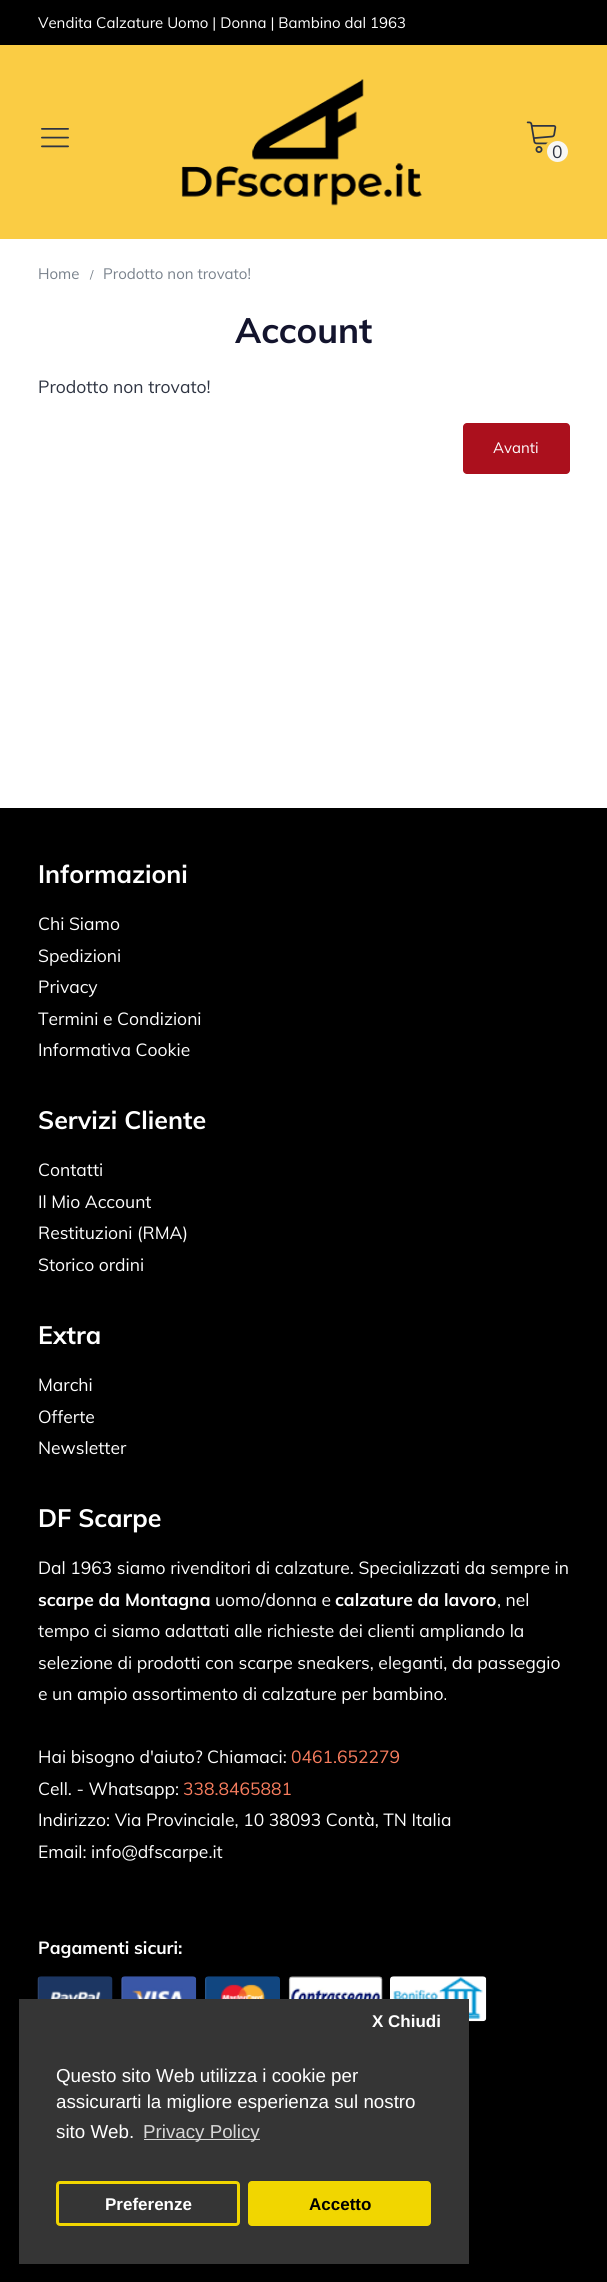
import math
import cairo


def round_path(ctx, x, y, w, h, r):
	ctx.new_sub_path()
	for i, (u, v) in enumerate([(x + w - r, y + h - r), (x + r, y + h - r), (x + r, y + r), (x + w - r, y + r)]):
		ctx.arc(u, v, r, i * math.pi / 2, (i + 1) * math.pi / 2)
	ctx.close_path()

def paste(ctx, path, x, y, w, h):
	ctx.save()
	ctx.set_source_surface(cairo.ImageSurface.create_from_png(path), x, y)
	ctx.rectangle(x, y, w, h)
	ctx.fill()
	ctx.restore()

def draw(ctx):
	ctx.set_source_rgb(1, 1, 1)
	ctx.paint()
	ctx.set_source_rgb(0.98, 0.8, 0.267)
	ctx.rectangle(0, 45, 607, 194)
	ctx.fill()
	ctx.set_source_rgb(0, 0, 0)
	ctx.rectangle(0, 0, 607, 45)
	ctx.fill()
	ctx.select_font_face('Muli')
	ctx.set_font_size(15)
	ctx.set_source_rgb(1, 1, 1)
	ctx.move_to(38, 28)
	ctx.show_text('Vendita Calzature Uomo | Donna | Bambino dal 1963')
	paste(ctx, 'media/1.png', 41, 128, 28, 20)
	paste(ctx, 'media/2.png', 181, 79, 241, 127)
	paste(ctx, 'media/3.png', 526, 121, 31, 32)
	ctx.set_source_rgb(0.969, 0.965, 0.953)
	ctx.arc(557.5, 151.5, 12, 0, 2 * math.pi)
	ctx.fill_preserve()
	ctx.set_source_rgb(0.98, 0.8, 0.267)
	ctx.set_line_width(3)
	ctx.stroke()
	ctx.set_font_size(17.5)
	ctx.set_source_rgb(0.18, 0.204, 0.259)
	ctx.move_to(552, 158)
	ctx.show_text('0')
	ctx.set_font_size(15)
	ctx.set_source_rgb(0.475, 0.51, 0.549)
	ctx.move_to(38, 279)
	ctx.show_text('Home')
	ctx.set_font_size(12)
	ctx.move_to(90, 279)
	ctx.show_text('/')
	ctx.set_font_size(15)
	ctx.move_to(103, 279)
	ctx.show_text('Prodotto non trovato!')
	ctx.select_font_face('Muli', cairo.FONT_SLANT_NORMAL, cairo.FONT_WEIGHT_BOLD)
	ctx.set_font_size(35)
	ctx.set_source_rgb(0.078, 0.082, 0.176)
	ctx.move_to(235, 343)
	ctx.show_text('Account')
	ctx.select_font_face('Muli')
	ctx.set_font_size(17.5)
	ctx.set_source_rgb(0.18, 0.204, 0.259)
	ctx.move_to(38, 393)
	ctx.show_text('Prodotto non trovato!')
	ctx.set_source_rgb(0.671, 0.063, 0.114)
	round_path(ctx, 463, 423, 107, 51, 4)
	ctx.fill()
	ctx.set_font_size(15)
	ctx.set_source_rgb(1, 1, 1)
	ctx.move_to(493, 453)
	ctx.show_text('Avanti')
	ctx.set_source_rgb(0, 0, 0)
	ctx.rectangle(0, 808, 607, 1474)
	ctx.fill()
	ctx.select_font_face('Muli', cairo.FONT_SLANT_NORMAL, cairo.FONT_WEIGHT_BOLD)
	ctx.set_font_size(25)
	ctx.set_source_rgb(1, 1, 1)
	ctx.move_to(38, 883)
	ctx.show_text('Informazioni')
	ctx.select_font_face('Muli')
	ctx.set_font_size(17.5)
	for x, y, s in [
		(38, 930, 'Chi Siamo'),
		(38, 962, 'Spedizioni'),
		(38, 993, 'Privacy'),
		(38, 1025, 'Termini e Condizioni'),
		(38, 1056, 'Informativa Cookie'),
	]:
		ctx.move_to(x, y)
		ctx.show_text(s)
	ctx.select_font_face('Muli', cairo.FONT_SLANT_NORMAL, cairo.FONT_WEIGHT_BOLD)
	ctx.set_font_size(25)
	ctx.move_to(38, 1129)
	ctx.show_text('Servizi Cliente')
	ctx.select_font_face('Muli')
	ctx.set_font_size(17.5)
	for x, y, s in [
		(38, 1176, 'Contatti'),
		(38, 1208, 'Il Mio Account'),
		(38, 1239, 'Restituzioni (RMA)'),
		(38, 1271, 'Storico ordini'),
	]:
		ctx.move_to(x, y)
		ctx.show_text(s)
	ctx.select_font_face('Muli', cairo.FONT_SLANT_NORMAL, cairo.FONT_WEIGHT_BOLD)
	ctx.set_font_size(25)
	ctx.move_to(38, 1344)
	ctx.show_text('Extra')
	ctx.select_font_face('Muli')
	ctx.set_font_size(17.5)
	for x, y, s in [
		(38, 1391, 'Marchi'),
		(38, 1423, 'Offerte'),
		(38, 1454, 'Newsletter'),
	]:
		ctx.move_to(x, y)
		ctx.show_text(s)
	ctx.select_font_face('Muli', cairo.FONT_SLANT_NORMAL, cairo.FONT_WEIGHT_BOLD)
	ctx.set_font_size(25)
	ctx.move_to(38, 1527)
	ctx.show_text('DF Scarpe')
	ctx.select_font_face('Muli')
	ctx.set_font_size(17.5)
	ctx.move_to(38, 1574)
	ctx.show_text('Dal 1963 siamo rivenditori di calzature. Specializzati da sempre in')
	ctx.select_font_face('Muli', cairo.FONT_SLANT_NORMAL, cairo.FONT_WEIGHT_BOLD)
	ctx.move_to(38, 1606)
	ctx.show_text('scarpe da Montagna')
	ctx.select_font_face('Muli')
	ctx.move_to(215, 1606)
	ctx.show_text('uomo/donna e')
	ctx.select_font_face('Muli', cairo.FONT_SLANT_NORMAL, cairo.FONT_WEIGHT_BOLD)
	ctx.move_to(335, 1606)
	ctx.show_text('calzature da lavoro')
	ctx.select_font_face('Muli')
	for x, y, s in [
		(497, 1606, ', nel'),
		(38, 1637, 'tempo ci siamo adattati alle richieste dei clienti ampliando la'),
		(38, 1669, 'selezione di prodotti con scarpe sneakers, eleganti, da passeggio'),
		(38, 1700, 'e un ampio assortimento di calzature per bambino.'),
		(38, 1763, 'Hai bisogno d\'aiuto? Chiamaci:'),
	]:
		ctx.move_to(x, y)
		ctx.show_text(s)
	ctx.set_source_rgb(0.969, 0.49, 0.369)
	ctx.move_to(291, 1763)
	ctx.show_text('0461.652279')
	ctx.set_source_rgb(1, 1, 1)
	ctx.move_to(38, 1795)
	ctx.show_text('Cell. - Whatsapp:')
	ctx.set_source_rgb(0.969, 0.49, 0.369)
	ctx.move_to(183, 1795)
	ctx.show_text('338.8465881')
	ctx.set_source_rgb(1, 1, 1)
	ctx.move_to(38, 1826)
	ctx.show_text('Indirizzo: Via Provinciale, 10 38093 Contà, TN Italia')
	ctx.move_to(38, 1858)
	ctx.show_text('Email: info@dfscarpe.it')
	ctx.select_font_face('Muli', cairo.FONT_SLANT_NORMAL, cairo.FONT_WEIGHT_BOLD)
	ctx.move_to(38, 1954)
	ctx.show_text('Pagamenti sicuri:')
	paste(ctx, 'media/4.png', 37, 1976, 76, 23)
	paste(ctx, 'media/5.png', 121, 1976, 76, 23)
	paste(ctx, 'media/6.png', 205, 1976, 75, 23)
	paste(ctx, 'media/7.png', 288, 1976, 95, 23)
	paste(ctx, 'media/8.png', 390, 1976, 97, 46)
	ctx.set_source_rgb(0.208, 0.208, 0.208)
	ctx.rectangle(19, 1999, 450, 265)
	ctx.fill()
	ctx.select_font_face('Liberation Sans', cairo.FONT_SLANT_NORMAL, cairo.FONT_WEIGHT_BOLD)
	ctx.set_font_size(17)
	ctx.set_source_rgb(1, 1, 1)
	ctx.move_to(372, 2027)
	ctx.show_text('X Chiudi')
	round_path(ctx, 57.5, 2182.5, 181, 42, 2.5)
	ctx.set_source_rgb(0.945, 0.839, 0)
	ctx.stroke()
	ctx.set_source_rgb(1, 1, 1)
	ctx.move_to(105, 2210)
	ctx.show_text('Preferenze')
	ctx.set_source_rgb(0.945, 0.839, 0)
	round_path(ctx, 248, 2181, 183, 45, 4)
	ctx.fill()
	ctx.set_source_rgb(0, 0, 0)
	ctx.move_to(309, 2210)
	ctx.show_text('Accetto')
	ctx.select_font_face('Liberation Sans')
	ctx.set_font_size(18.75)
	ctx.set_source_rgb(1, 1, 1)
	for x, y, s in [
		(56, 2082, 'Questo sito Web utilizza i cookie per'),
		(56, 2108, 'assicurarti la migliore esperienza sul nostro'),
		(56, 2138, 'sito Web.'),
	]:
		ctx.move_to(x, y)
		ctx.show_text(s)
	ctx.set_source_rgb(0.843, 0.843, 0.843)
	ctx.rectangle(144, 2139, 116, 1)
	ctx.fill()
	ctx.move_to(143, 2138)
	ctx.show_text('Privacy Policy')


surface = cairo.ImageSurface(cairo.FORMAT_RGB24, 607, 2282)
ctx = cairo.Context(surface)
options = cairo.FontOptions()
options.set_hint_metrics(cairo.HINT_METRICS_OFF)
options.set_hint_style(cairo.HINT_STYLE_NONE)
ctx.set_font_options(options)
ctx.set_miter_limit(4)
draw(ctx)
surface.write_to_png('image.png')
